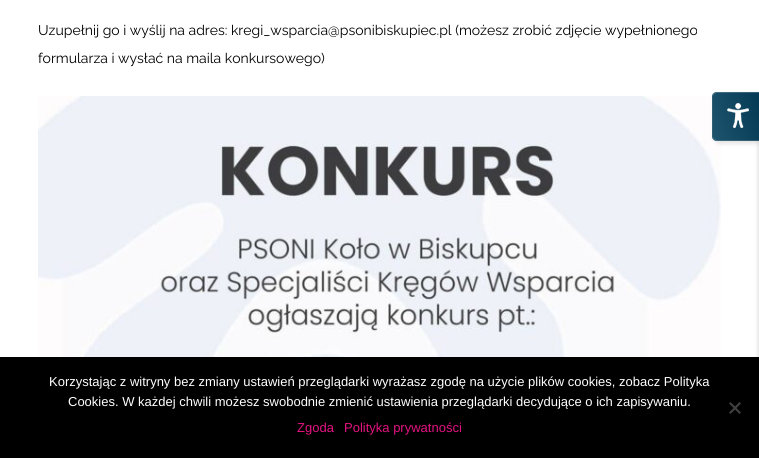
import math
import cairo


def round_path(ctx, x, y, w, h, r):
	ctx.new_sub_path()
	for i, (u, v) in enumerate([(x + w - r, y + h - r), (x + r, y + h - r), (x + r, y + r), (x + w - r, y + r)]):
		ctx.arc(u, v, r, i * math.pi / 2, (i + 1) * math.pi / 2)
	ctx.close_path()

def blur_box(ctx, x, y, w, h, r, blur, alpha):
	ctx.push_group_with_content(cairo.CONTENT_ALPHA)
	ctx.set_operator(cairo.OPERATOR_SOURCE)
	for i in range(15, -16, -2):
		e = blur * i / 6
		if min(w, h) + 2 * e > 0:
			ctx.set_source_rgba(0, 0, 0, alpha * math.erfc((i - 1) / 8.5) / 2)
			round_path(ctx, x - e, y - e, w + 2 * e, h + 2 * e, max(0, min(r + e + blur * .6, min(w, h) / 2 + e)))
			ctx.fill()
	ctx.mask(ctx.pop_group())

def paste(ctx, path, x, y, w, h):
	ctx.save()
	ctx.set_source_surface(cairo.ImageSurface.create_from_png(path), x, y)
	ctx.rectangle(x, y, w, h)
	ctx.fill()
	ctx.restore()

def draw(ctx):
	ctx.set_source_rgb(1, 1, 1)
	ctx.paint()
	ctx.select_font_face('Raleway')
	ctx.set_font_size(14)
	ctx.set_source_rgb(0, 0, 0)
	ctx.move_to(38, 35)
	ctx.show_text('Uzupełnij go i wyślij na adres: kregi_wsparcia@psonibiskupiec.pl (możesz zrobić zdjęcie wypełnionego')
	ctx.move_to(38, 63)
	ctx.show_text('formularza i wysłać na maila konkursowego)')
	paste(ctx, 'media/1.png', 38, 96, 683, 261)
	ctx.rectangle(0, 357, 759, 101)
	ctx.fill()
	ctx.select_font_face('Liberation Sans')
	ctx.set_font_size(13)
	ctx.set_source_rgb(1, 1, 1)
	ctx.move_to(49, 386)
	ctx.show_text('Korzystając z witryny bez zmiany ustawień przeglądarki wyrażasz zgodę na użycie plików cookies, zobacz Polityka')
	ctx.move_to(68, 406)
	ctx.show_text('Cookies. W każdej chwili możesz swobodnie zmienić ustawienia przeglądarki decydujące o ich zapisywaniu.')
	ctx.set_source_rgb(0.251, 0.251, 0.251)
	ctx.new_path()
	ctx.move_to(739.5, 402)
	ctx.line_to(741, 403.5)
	ctx.line_to(730.5, 414)
	ctx.line_to(729, 412.5)
	ctx.close_path()
	ctx.fill()
	ctx.new_path()
	ctx.move_to(729, 403.5)
	ctx.line_to(730.5, 402)
	ctx.line_to(741, 412.5)
	ctx.line_to(739.5, 414)
	ctx.close_path()
	ctx.fill()
	ctx.set_source_rgb(0.89, 0.078, 0.502)
	ctx.move_to(297, 432)
	ctx.show_text('Zgoda')
	ctx.move_to(344, 432)
	ctx.show_text('Polityka prywatności')
	ctx.set_source_rgb(0, 0, 0)
	blur_box(ctx, 715, 94, 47, 49, 5, 2.5, 0.14)
	ctx.set_source_rgb(0, 0.004, 0.004)
	blur_box(ctx, 759, 97, 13, 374, 5, 2.5, 0.2)
	ctx.set_source_rgb(0.035, 0.353, 0.506)
	ctx.new_path()
	ctx.move_to(717, 92)
	ctx.line_to(759, 92)
	ctx.line_to(759, 141)
	ctx.line_to(717, 141)
	ctx.curve_to(714, 141, 712, 139, 712, 136)
	ctx.line_to(712, 97)
	ctx.curve_to(712, 94, 714, 92, 717, 92)
	ctx.close_path()
	ctx.fill()
	ctx.save()
	ctx.new_path()
	ctx.move_to(717, 92)
	ctx.line_to(759, 92)
	ctx.line_to(759, 141)
	ctx.line_to(717, 141)
	ctx.curve_to(714, 141, 712, 139, 712, 136)
	ctx.line_to(712, 97)
	ctx.curve_to(712, 94, 714, 92, 717, 92)
	ctx.close_path()
	ctx.clip()
	gradient = cairo.LinearGradient(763, 62, 709, 77)
	gradient.add_color_stop_rgba(0.01, 0, 0, 0, 0.35)
	gradient.add_color_stop_rgba(0.98, 0.263, 0.263, 0.263, 0.35)
	ctx.set_source(gradient)
	ctx.rectangle(713, 92, 46, 1)
	ctx.fill()
	gradient = cairo.LinearGradient(717, 109, 663, 124)
	gradient.add_color_stop_rgba(0.01, 0, 0, 0, 0.35)
	gradient.add_color_stop_rgba(0.98, 0.263, 0.263, 0.263, 0.35)
	ctx.set_source(gradient)
	ctx.rectangle(712, 93, 1, 47)
	ctx.fill()
	ctx.restore()
	gradient = cairo.LinearGradient(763, 109, 709, 124)
	gradient.add_color_stop_rgba(0.01, 0, 0, 0, 0.35)
	gradient.add_color_stop_rgba(0.98, 0.263, 0.263, 0.263, 0.35)
	ctx.set_source(gradient)
	ctx.rectangle(713, 93, 46, 47)
	ctx.fill()
	ctx.save()
	ctx.new_path()
	ctx.move_to(717, 92)
	ctx.line_to(759, 92)
	ctx.line_to(759, 141)
	ctx.line_to(717, 141)
	ctx.curve_to(714, 141, 712, 139, 712, 136)
	ctx.line_to(712, 97)
	ctx.curve_to(712, 94, 714, 92, 717, 92)
	ctx.close_path()
	ctx.clip()
	gradient = cairo.LinearGradient(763, 156, 709, 171)
	gradient.add_color_stop_rgba(0.01, 0, 0, 0, 0.35)
	gradient.add_color_stop_rgba(0.98, 0.263, 0.263, 0.263, 0.35)
	ctx.set_source(gradient)
	ctx.rectangle(713, 140, 46, 1)
	ctx.fill()
	ctx.restore()
	ctx.set_source_rgba(1, 1, 1, 0.17)
	ctx.set_fill_rule(cairo.FILL_RULE_EVEN_ODD)
	ctx.new_path()
	ctx.move_to(717, 92)
	ctx.line_to(759, 92)
	ctx.line_to(759, 141)
	ctx.line_to(717, 141)
	ctx.curve_to(714, 141, 712, 139, 712, 136)
	ctx.line_to(712, 97)
	ctx.curve_to(712, 94, 714, 92, 717, 92)
	ctx.close_path()
	ctx.move_to(717, 93)
	ctx.line_to(759, 93)
	ctx.line_to(759, 140)
	ctx.line_to(717, 140)
	ctx.curve_to(715, 140, 713, 138, 713, 136)
	ctx.line_to(713, 97)
	ctx.curve_to(713, 95, 715, 93, 717, 93)
	ctx.close_path()
	ctx.fill()
	paste(ctx, 'media/2.png', 727, 103, 22, 25)


surface = cairo.ImageSurface(cairo.FORMAT_RGB24, 759, 458)
ctx = cairo.Context(surface)
options = cairo.FontOptions()
options.set_hint_metrics(cairo.HINT_METRICS_OFF)
options.set_hint_style(cairo.HINT_STYLE_NONE)
ctx.set_font_options(options)
ctx.set_miter_limit(4)
draw(ctx)
surface.write_to_png('image.png')
